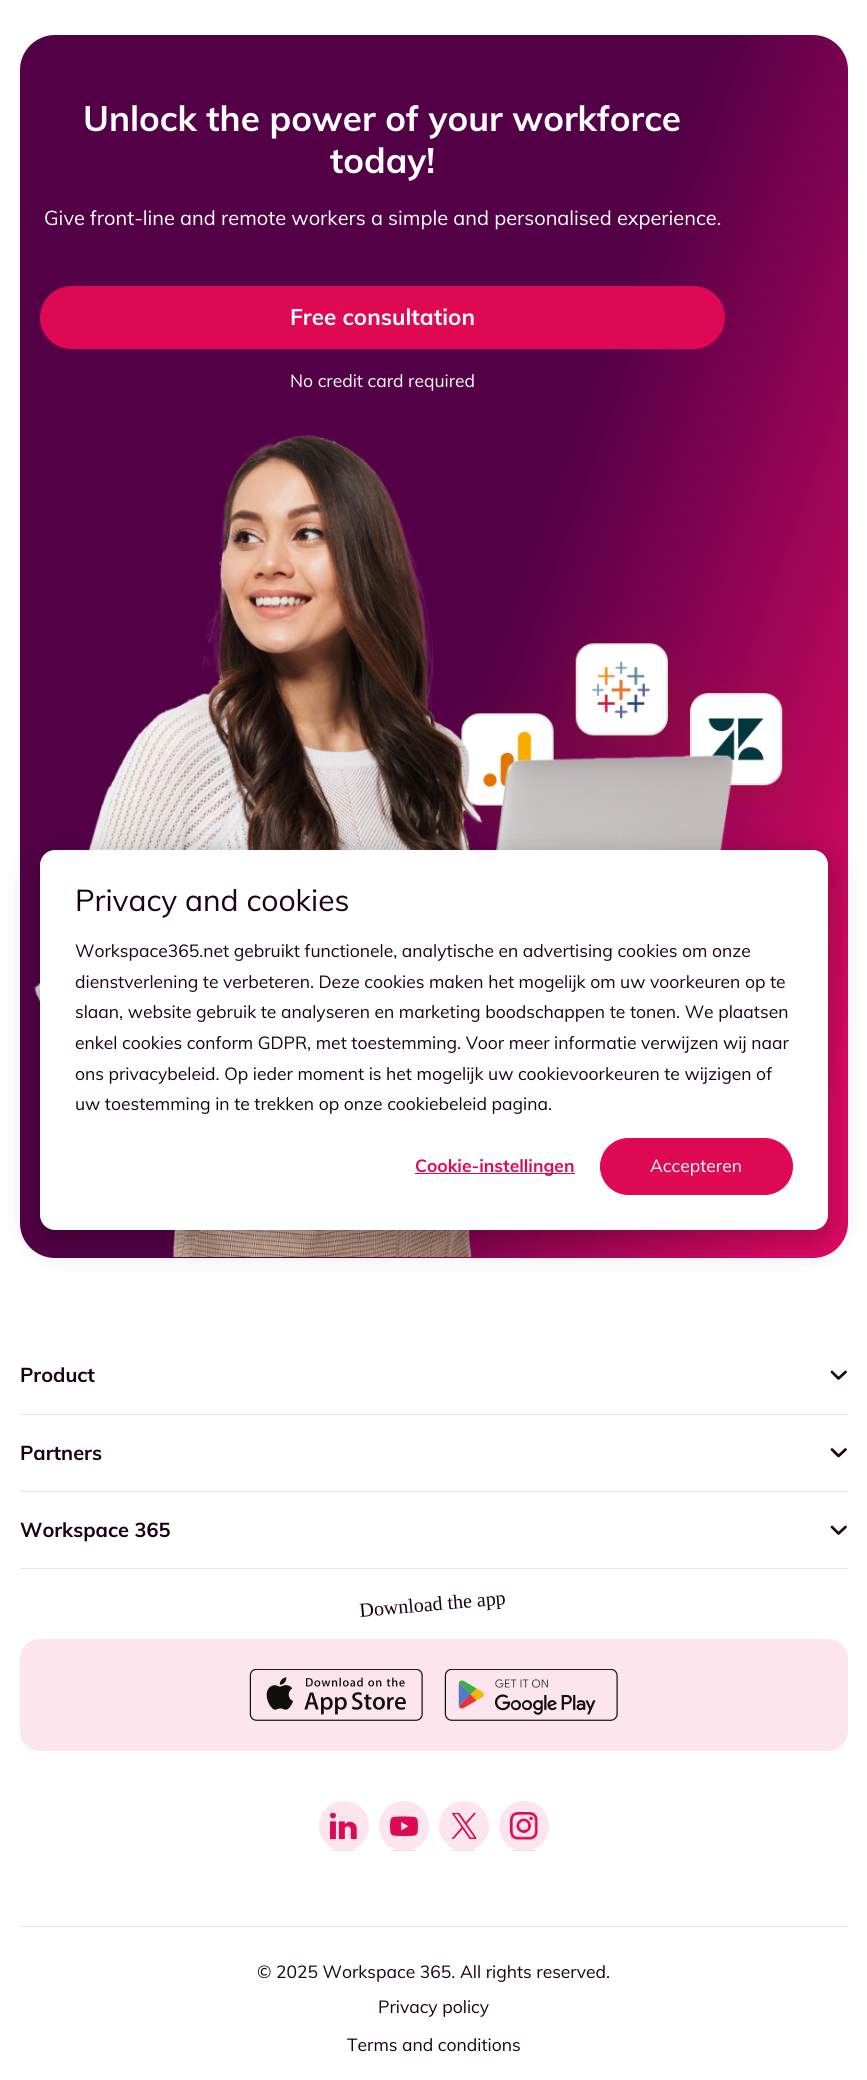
import math
import cairo


def round_path(ctx, x, y, w, h, r):
	ctx.new_sub_path()
	for i, (u, v) in enumerate([(x + w - r, y + h - r), (x + r, y + h - r), (x + r, y + r), (x + w - r, y + r)]):
		ctx.arc(u, v, r, i * math.pi / 2, (i + 1) * math.pi / 2)
	ctx.close_path()

def blur_box(ctx, x, y, w, h, r, blur, alpha):
	ctx.push_group_with_content(cairo.CONTENT_ALPHA)
	ctx.set_operator(cairo.OPERATOR_SOURCE)
	for i in range(15, -16, -2):
		e = blur * i / 6
		if min(w, h) + 2 * e > 0:
			ctx.set_source_rgba(0, 0, 0, alpha * math.erfc((i - 1) / 8.5) / 2)
			round_path(ctx, x - e, y - e, w + 2 * e, h + 2 * e, max(0, min(r + e + blur * .6, min(w, h) / 2 + e)))
			ctx.fill()
	ctx.mask(ctx.pop_group())

def paste(ctx, path, x, y, w, h):
	ctx.save()
	ctx.set_source_surface(cairo.ImageSurface.create_from_png(path), x, y)
	ctx.rectangle(x, y, w, h)
	ctx.fill()
	ctx.restore()

def draw(ctx):
	ctx.set_source_rgb(1, 1, 1)
	ctx.paint()
	gradient = cairo.LinearGradient(-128, 442, 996, 851)
	gradient.add_color_stop_rgba(0.55, 0.329, 0, 0.278, 1)
	gradient.add_color_stop_rgba(0.95, 0.871, 0.035, 0.392, 1)
	ctx.set_source(gradient)
	round_path(ctx, 20, 35, 828, 1223, 35)
	ctx.fill()
	ctx.select_font_face('Muli', cairo.FONT_SLANT_NORMAL, cairo.FONT_WEIGHT_BOLD)
	ctx.set_font_size(35)
	ctx.set_source_rgb(1, 1, 1)
	ctx.move_to(83, 131)
	ctx.show_text('Unlock the power of your workforce')
	ctx.move_to(330, 173)
	ctx.show_text('today!')
	ctx.select_font_face('Muli')
	ctx.set_font_size(20)
	ctx.move_to(44, 225)
	ctx.show_text('Give front-line and remote workers a simple and personalised experience.')
	ctx.set_source_rgb(0.871, 0.035, 0.329)
	round_path(ctx, 41.5, 287.5, 682, 60, 30)
	ctx.fill_preserve()
	ctx.set_line_width(3)
	ctx.stroke()
	ctx.select_font_face('Muli', cairo.FONT_SLANT_NORMAL, cairo.FONT_WEIGHT_BOLD)
	ctx.set_font_size(22.5)
	ctx.set_source_rgb(1, 1, 1)
	ctx.move_to(290, 325)
	ctx.show_text('Free consultation')
	ctx.select_font_face('Muli')
	ctx.set_font_size(17.5)
	ctx.move_to(290, 387)
	ctx.show_text('No credit card required')
	paste(ctx, 'media/1.png', 34, 434, 762, 823)
	ctx.set_source_rgb(0.902, 0.902, 0.902)
	ctx.rectangle(20, 1926, 828, 1)
	ctx.fill()
	ctx.rectangle(20, 1414, 828, 1)
	ctx.fill()
	ctx.select_font_face('Muli', cairo.FONT_SLANT_NORMAL, cairo.FONT_WEIGHT_BOLD)
	ctx.set_font_size(20)
	ctx.set_source_rgb(0.102, 0, 0.086)
	ctx.move_to(20, 1382)
	ctx.show_text('Product')
	ctx.new_path()
	ctx.move_to(832, 1372)
	ctx.line_to(838.5, 1378.5)
	ctx.line_to(845.5, 1372)
	ctx.set_line_width(2.7)
	ctx.set_line_cap(cairo.LINE_CAP_ROUND)
	ctx.set_line_join(cairo.LINE_JOIN_ROUND)
	ctx.stroke()
	ctx.set_source_rgb(0.902, 0.902, 0.902)
	ctx.rectangle(20, 1491, 828, 1)
	ctx.fill()
	ctx.set_source_rgb(0.102, 0, 0.086)
	ctx.move_to(20, 1460)
	ctx.show_text('Partners')
	ctx.new_path()
	ctx.move_to(832, 1449.5)
	ctx.line_to(838.5, 1456)
	ctx.line_to(845.5, 1449.5)
	ctx.stroke()
	ctx.set_source_rgb(0.902, 0.902, 0.902)
	ctx.rectangle(20, 1568, 828, 1)
	ctx.fill()
	ctx.set_source_rgb(0.102, 0, 0.086)
	ctx.move_to(20, 1537)
	ctx.show_text('Workspace 365')
	ctx.new_path()
	ctx.move_to(832, 1527)
	ctx.line_to(838.5, 1533.5)
	ctx.line_to(845.5, 1527)
	ctx.stroke()
	ctx.select_font_face('Liberation Serif')
	ctx.save()
	ctx.translate(360, 1617)
	ctx.rotate(-5 * math.pi / 180)
	ctx.move_to(0, 0)
	ctx.show_text('Download the app')
	ctx.restore()
	ctx.set_source_rgb(0.988, 0.898, 0.929)
	round_path(ctx, 20, 1639, 828, 112, 20)
	ctx.fill()
	paste(ctx, 'media/2.png', 249, 1669, 174, 52)
	paste(ctx, 'media/3.png', 444, 1669, 174, 52)
	ctx.arc(344, 1826, 25, 0, 2 * math.pi)
	ctx.fill()
	ctx.set_source_rgb(0.902, 0.902, 0.902)
	ctx.rectangle(331, 1850, 25, 1)
	ctx.fill()
	paste(ctx, 'media/4.png', 330, 1813, 27, 26)
	ctx.set_source_rgb(0.988, 0.898, 0.929)
	ctx.arc(404, 1826, 25, 0, 2 * math.pi)
	ctx.fill()
	ctx.set_source_rgb(0.902, 0.902, 0.902)
	ctx.rectangle(391, 1850, 25, 1)
	ctx.fill()
	paste(ctx, 'media/5.png', 390, 1816, 28, 20)
	ctx.set_source_rgb(0.988, 0.898, 0.929)
	ctx.arc(464, 1826, 25, 0, 2 * math.pi)
	ctx.fill()
	ctx.set_source_rgb(0.902, 0.902, 0.902)
	ctx.rectangle(451, 1850, 25, 1)
	ctx.fill()
	paste(ctx, 'media/6.png', 451, 1813, 25, 26)
	ctx.set_source_rgb(0.988, 0.898, 0.929)
	ctx.arc(524, 1826, 25, 0, 2 * math.pi)
	ctx.fill()
	ctx.set_source_rgb(0.902, 0.902, 0.902)
	ctx.rectangle(511, 1850, 25, 1)
	ctx.fill()
	paste(ctx, 'media/7.png', 510, 1812, 28, 28)
	ctx.select_font_face('Muli')
	ctx.set_font_size(17.5)
	ctx.set_source_rgb(0.102, 0, 0.086)
	for x, y, s in [
		(257, 1978, '© 2025 Workspace 365. All rights reserved.'),
		(378, 2013, 'Privacy policy'),
		(347, 2051, 'Terms and conditions'),
	]:
		ctx.move_to(x, y)
		ctx.show_text(s)
	ctx.set_source_rgb(0, 0, 0)
	blur_box(ctx, 40, 860, 788, 380, 15, 17.5, 0.28)
	ctx.set_source_rgb(1, 1, 1)
	round_path(ctx, 40, 850, 788, 380, 15)
	ctx.fill()
	ctx.set_font_size(30)
	ctx.set_source_rgb(0.102, 0, 0.086)
	ctx.move_to(75, 911)
	ctx.show_text('Privacy and cookies')
	ctx.set_font_size(17.5)
	for x, y, s in [
		(75, 957, 'Workspace365.net gebruikt functionele, analytische en advertising cookies om onze'),
		(75, 988, 'dienstverlening te verbeteren. Deze cookies maken het mogelijk om uw voorkeuren op te'),
		(75, 1018, 'slaan, website gebruik te analyseren en marketing boodschappen te tonen. We plaatsen'),
		(75, 1049, 'enkel cookies conform GDPR, met toestemming. Voor meer informatie verwijzen wij naar'),
		(75, 1080, 'ons privacybeleid. Op ieder moment is het mogelijk uw cookievoorkeuren te wijzigen of'),
		(75, 1110, 'uw toestemming in te trekken op onze cookiebeleid pagina.'),
	]:
		ctx.move_to(x, y)
		ctx.show_text(s)
	ctx.set_source_rgb(0.871, 0.035, 0.329)
	ctx.rectangle(415, 1173, 160, 1)
	ctx.fill()
	ctx.select_font_face('Muli', cairo.FONT_SLANT_NORMAL, cairo.FONT_WEIGHT_BOLD)
	ctx.move_to(415, 1172)
	ctx.show_text('Cookie-instellingen')
	round_path(ctx, 600.5, 1138.5, 192, 56, 28)
	ctx.fill_preserve()
	ctx.set_line_width(1)
	ctx.set_line_cap(cairo.LINE_CAP_BUTT)
	ctx.set_line_join(cairo.LINE_JOIN_MITER)
	ctx.stroke()
	ctx.select_font_face('Muli')
	ctx.set_source_rgb(1, 1, 1)
	ctx.move_to(650, 1172)
	ctx.show_text('Accepteren')


surface = cairo.ImageSurface(cairo.FORMAT_RGB24, 867, 2080)
ctx = cairo.Context(surface)
options = cairo.FontOptions()
options.set_hint_metrics(cairo.HINT_METRICS_OFF)
options.set_hint_style(cairo.HINT_STYLE_NONE)
ctx.set_font_options(options)
ctx.set_miter_limit(4)
draw(ctx)
surface.write_to_png('image.png')
